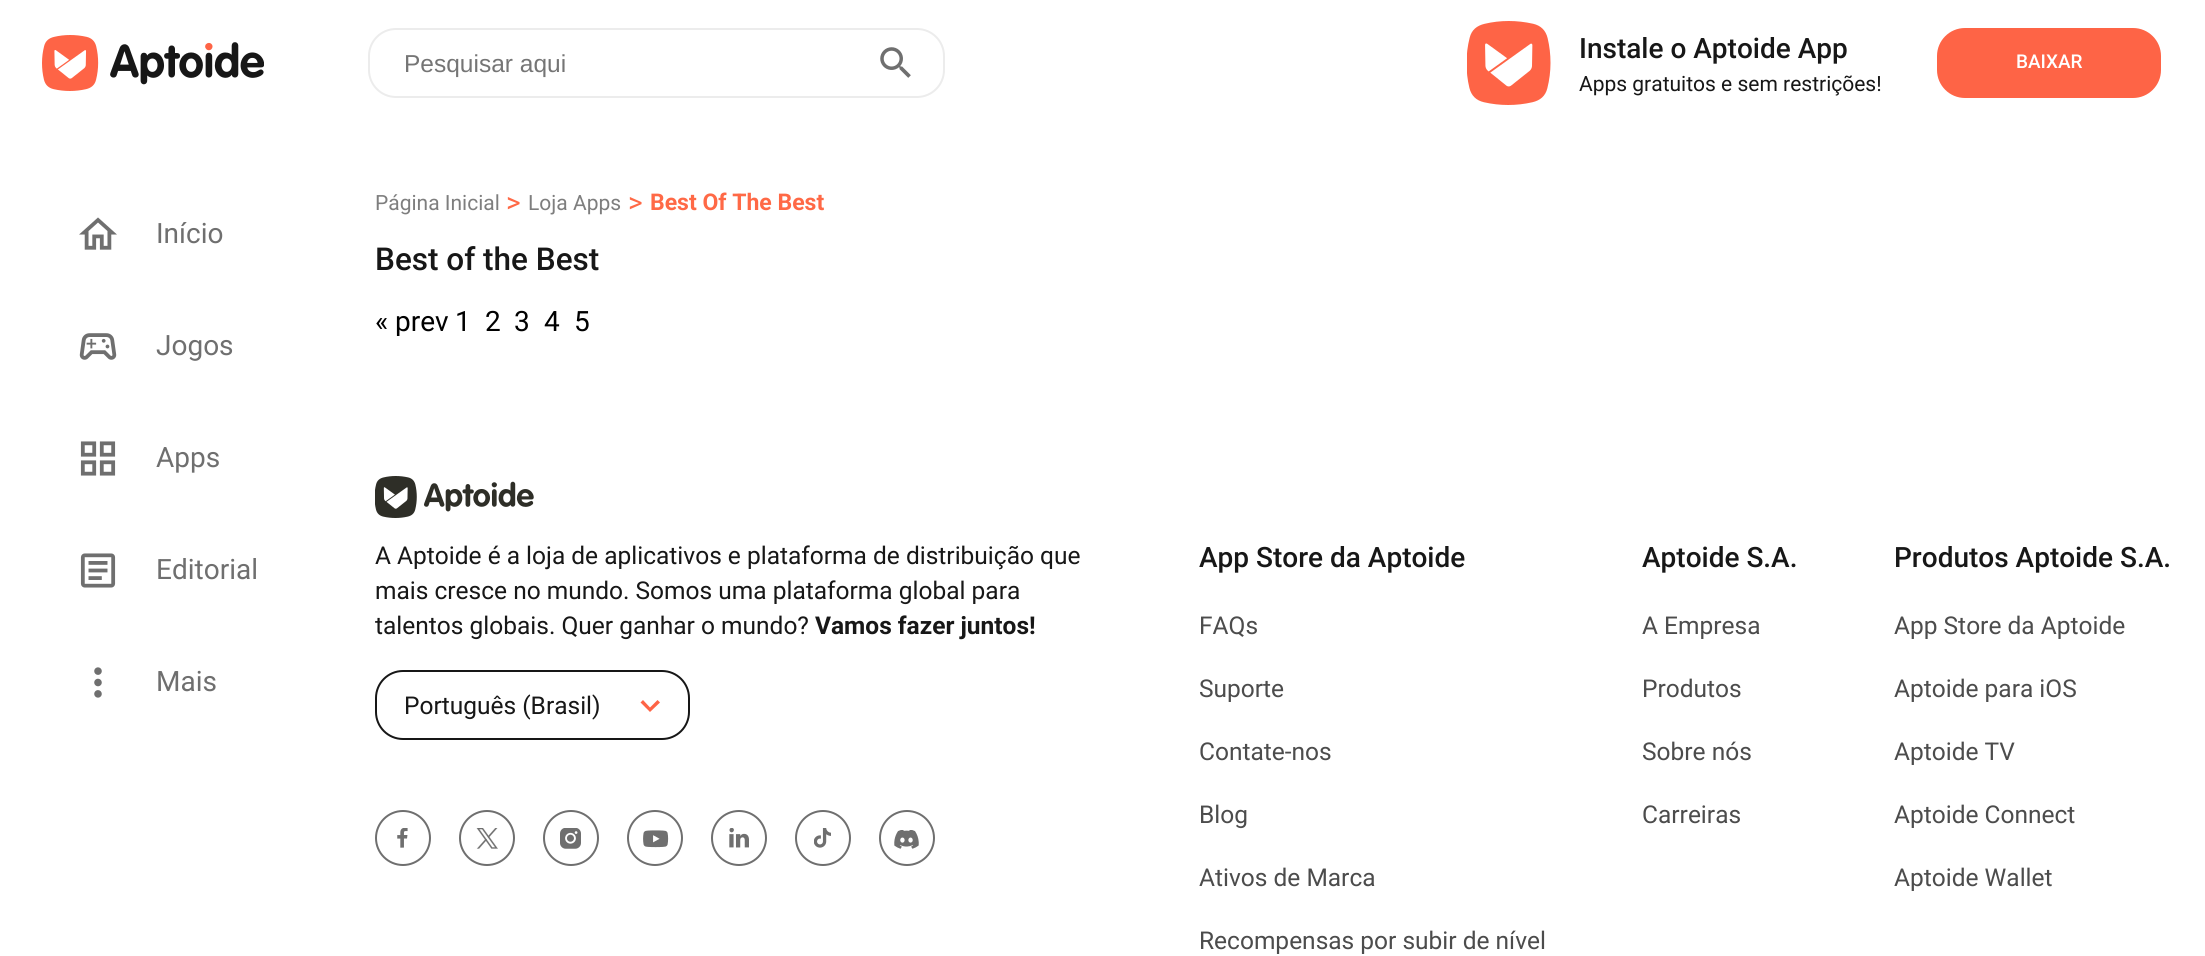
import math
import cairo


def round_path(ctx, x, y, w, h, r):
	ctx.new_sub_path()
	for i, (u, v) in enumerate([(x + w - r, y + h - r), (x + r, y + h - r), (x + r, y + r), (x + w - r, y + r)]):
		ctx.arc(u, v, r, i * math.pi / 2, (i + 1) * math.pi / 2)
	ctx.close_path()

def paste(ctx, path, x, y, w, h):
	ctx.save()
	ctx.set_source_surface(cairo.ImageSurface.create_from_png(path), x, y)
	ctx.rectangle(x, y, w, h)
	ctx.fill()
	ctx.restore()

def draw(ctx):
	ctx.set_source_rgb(1, 1, 1)
	ctx.paint()
	paste(ctx, 'media/1.png', 42, 35, 222, 56)
	round_path(ctx, 369, 29, 575, 68, 27)
	ctx.set_source_rgb(0.922, 0.922, 0.922)
	ctx.stroke()
	ctx.select_font_face('Liberation Sans')
	ctx.set_font_size(24.5)
	ctx.set_source_rgb(0.459, 0.459, 0.459)
	ctx.move_to(404, 72)
	ctx.show_text('Pesquisar aqui')
	paste(ctx, 'media/2.png', 880, 47, 31, 31)
	paste(ctx, 'media/3.png', 1467, 21, 84, 84)
	ctx.select_font_face('Roboto Medium')
	ctx.set_font_size(28)
	ctx.set_source_rgb(0.09, 0.09, 0.09)
	ctx.move_to(1579, 58)
	ctx.show_text('Instale o Aptoide App')
	ctx.select_font_face('Roboto')
	ctx.set_font_size(21)
	ctx.move_to(1579, 91)
	ctx.show_text('Apps gratuitos e sem restrições!')
	ctx.set_source_rgb(0.996, 0.392, 0.275)
	round_path(ctx, 1937, 28, 224, 70, 28)
	ctx.fill()
	ctx.select_font_face('Roboto Medium')
	ctx.set_font_size(19)
	ctx.set_source_rgb(1, 1, 1)
	ctx.move_to(2016, 68)
	ctx.show_text('BAIXAR')
	paste(ctx, 'media/4.png', 79, 217, 38, 33)
	ctx.select_font_face('Roboto')
	ctx.set_font_size(28)
	ctx.set_source_rgb(0.435, 0.435, 0.435)
	ctx.move_to(156, 243)
	ctx.show_text('Início')
	paste(ctx, 'media/5.png', 79, 333, 38, 27)
	ctx.move_to(156, 355)
	ctx.show_text('Jogos')
	paste(ctx, 'media/6.png', 80, 441, 36, 35)
	ctx.move_to(156, 467)
	ctx.show_text('Apps')
	paste(ctx, 'media/7.png', 80, 553, 36, 35)
	ctx.move_to(156, 579)
	ctx.show_text('Editorial')
	paste(ctx, 'media/8.png', 94, 667, 8, 31)
	ctx.move_to(156, 691)
	ctx.show_text('Mais')
	ctx.set_font_size(21)
	ctx.set_source_rgb(0.494, 0.494, 0.494)
	ctx.move_to(375, 210)
	ctx.show_text('Página Inicial')
	ctx.set_font_size(28)
	ctx.set_source_rgb(1, 0.412, 0.275)
	ctx.move_to(506, 212)
	ctx.show_text('>')
	ctx.set_font_size(21)
	ctx.set_source_rgb(0.494, 0.494, 0.494)
	ctx.move_to(528, 210)
	ctx.show_text('Loja Apps')
	ctx.set_font_size(28)
	ctx.set_source_rgb(1, 0.412, 0.275)
	ctx.move_to(628, 212)
	ctx.show_text('>')
	ctx.select_font_face('Roboto', cairo.FONT_SLANT_NORMAL, cairo.FONT_WEIGHT_BOLD)
	ctx.set_font_size(23)
	ctx.move_to(650, 210)
	ctx.show_text('Best Of The Best')
	ctx.select_font_face('Roboto Medium')
	ctx.set_font_size(31.5)
	ctx.set_source_rgb(0.09, 0.09, 0.09)
	ctx.move_to(375, 270)
	ctx.show_text('Best of the Best')
	ctx.select_font_face('Roboto')
	ctx.set_font_size(28)
	ctx.set_source_rgb(0, 0, 0)
	ctx.move_to(375, 331)
	ctx.show_text('«')
	ctx.save()
	ctx.rectangle(375, 308, 1344, 28)
	ctx.clip()
	ctx.move_to(395, 331)
	ctx.show_text('prev')
	ctx.restore()
	for x, y, s in [
		(455, 331, '1'),
		(485, 331, '2'),
		(514, 331, '3'),
		(544, 331, '4'),
		(574, 331, '5'),
	]:
		ctx.move_to(x, y)
		ctx.show_text(s)
	paste(ctx, 'media/9.png', 375, 476, 159, 42)
	ctx.set_font_size(24.5)
	ctx.set_source_rgb(0.09, 0.09, 0.09)
	for x, y, s in [
		(375, 564, 'A Aptoide é a loja de aplicativos e plataforma de distribuição que'),
		(375, 599, 'mais cresce no mundo. Somos uma plataforma global para'),
		(375, 634, 'talentos globais. Quer ganhar o mundo?'),
	]:
		ctx.move_to(x, y)
		ctx.show_text(s)
	ctx.select_font_face('Roboto', cairo.FONT_SLANT_NORMAL, cairo.FONT_WEIGHT_BOLD)
	ctx.move_to(815, 634)
	ctx.show_text('Vamos fazer juntos!')
	round_path(ctx, 376, 671, 313, 68, 27)
	ctx.stroke()
	ctx.select_font_face('Roboto')
	ctx.move_to(404, 714)
	ctx.show_text('Português (Brasil)')
	ctx.set_source_rgb(0.996, 0.392, 0.275)
	ctx.new_path()
	ctx.move_to(657.5, 700)
	ctx.line_to(650, 707.5)
	ctx.line_to(643, 700)
	ctx.line_to(640.5, 702.5)
	ctx.line_to(650, 712)
	ctx.line_to(660, 702.5)
	ctx.close_path()
	ctx.fill()
	ctx.arc(403, 838, 27, 0, 2 * math.pi)
	ctx.set_source_rgb(0.435, 0.435, 0.435)
	ctx.stroke()
	paste(ctx, 'media/10.png', 397, 828, 11, 20)
	ctx.arc(487, 838, 27, 0, 2 * math.pi)
	ctx.stroke()
	paste(ctx, 'media/11.png', 476, 828, 22, 21)
	ctx.arc(571, 838, 27, 0, 2 * math.pi)
	ctx.stroke()
	paste(ctx, 'media/12.png', 560, 828, 21, 21)
	ctx.arc(655, 838, 27, 0, 2 * math.pi)
	ctx.stroke()
	paste(ctx, 'media/13.png', 643, 830, 26, 18)
	ctx.arc(739, 838, 27, 0, 2 * math.pi)
	ctx.stroke()
	paste(ctx, 'media/14.png', 729, 828, 20, 20)
	ctx.arc(823, 838, 27, 0, 2 * math.pi)
	ctx.stroke()
	paste(ctx, 'media/15.png', 814, 828, 17, 20)
	ctx.arc(907, 838, 27, 0, 2 * math.pi)
	ctx.stroke()
	paste(ctx, 'media/16.png', 894, 830, 25, 19)
	ctx.select_font_face('Roboto Medium')
	ctx.set_font_size(28)
	ctx.set_source_rgb(0.09, 0.09, 0.09)
	ctx.move_to(1199, 567)
	ctx.show_text('App Store da Aptoide')
	ctx.select_font_face('Roboto')
	ctx.set_font_size(24.5)
	ctx.set_source_rgb(0.298, 0.298, 0.298)
	for x, y, s in [
		(1199, 634, 'FAQs'),
		(1199, 697, 'Suporte'),
		(1199, 760, 'Contate-nos'),
		(1199, 823, 'Blog'),
		(1199, 886, 'Ativos de Marca'),
		(1199, 949, 'Recompensas por subir de nível'),
	]:
		ctx.move_to(x, y)
		ctx.show_text(s)
	ctx.select_font_face('Roboto Medium')
	ctx.set_font_size(28)
	ctx.set_source_rgb(0.09, 0.09, 0.09)
	ctx.move_to(1642, 567)
	ctx.show_text('Aptoide S.A.')
	ctx.select_font_face('Roboto')
	ctx.set_font_size(24.5)
	ctx.set_source_rgb(0.298, 0.298, 0.298)
	for x, y, s in [
		(1642, 634, 'A Empresa'),
		(1642, 697, 'Produtos'),
		(1642, 760, 'Sobre nós'),
		(1642, 823, 'Carreiras'),
	]:
		ctx.move_to(x, y)
		ctx.show_text(s)
	ctx.select_font_face('Roboto Medium')
	ctx.set_font_size(28)
	ctx.set_source_rgb(0.09, 0.09, 0.09)
	ctx.move_to(1894, 567)
	ctx.show_text('Produtos Aptoide S.A.')
	ctx.select_font_face('Roboto')
	ctx.set_font_size(24.5)
	ctx.set_source_rgb(0.298, 0.298, 0.298)
	for x, y, s in [
		(1894, 634, 'App Store da Aptoide'),
		(1894, 697, 'Aptoide para iOS'),
		(1894, 760, 'Aptoide TV'),
		(1894, 823, 'Aptoide Connect'),
		(1894, 886, 'Aptoide Wallet'),
	]:
		ctx.move_to(x, y)
		ctx.show_text(s)


surface = cairo.ImageSurface(cairo.FORMAT_RGB24, 2205, 956)
ctx = cairo.Context(surface)
options = cairo.FontOptions()
options.set_hint_metrics(cairo.HINT_METRICS_OFF)
options.set_hint_style(cairo.HINT_STYLE_NONE)
ctx.set_font_options(options)
ctx.set_miter_limit(4)
draw(ctx)
surface.write_to_png('image.png')
